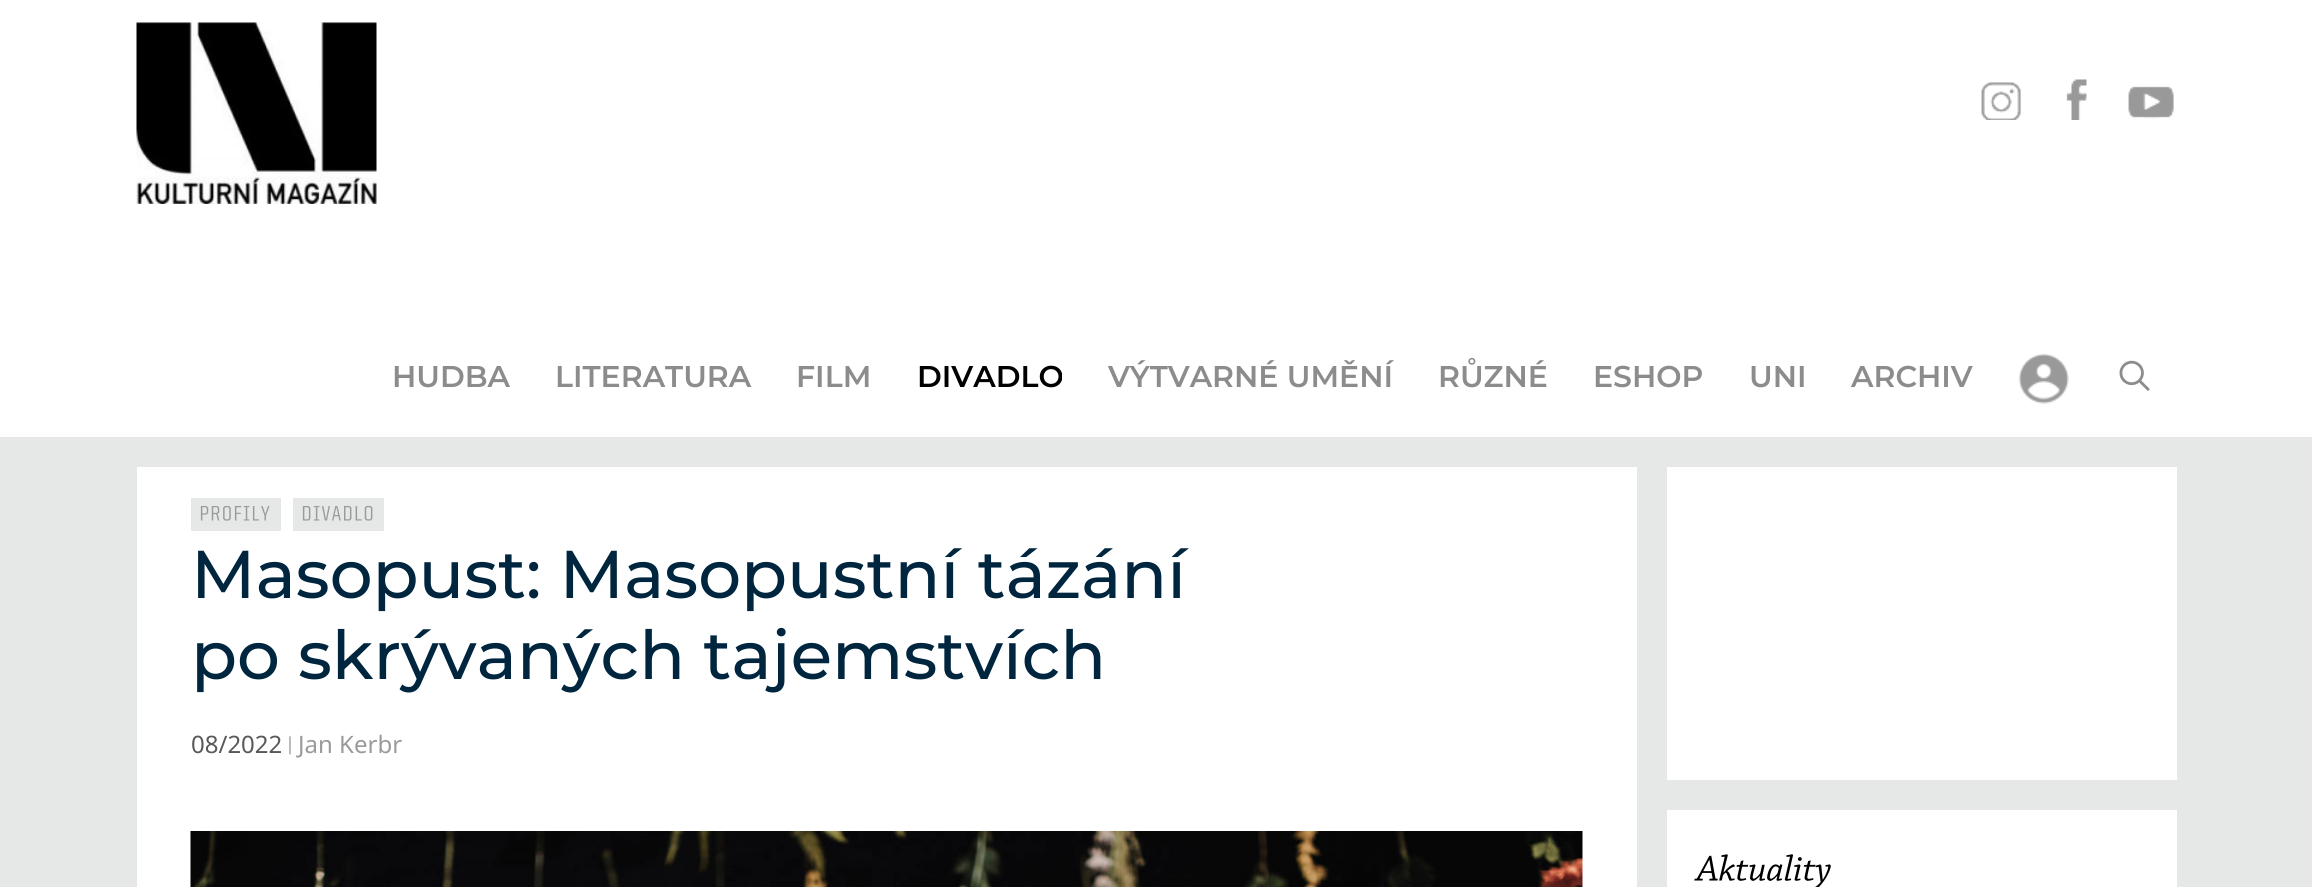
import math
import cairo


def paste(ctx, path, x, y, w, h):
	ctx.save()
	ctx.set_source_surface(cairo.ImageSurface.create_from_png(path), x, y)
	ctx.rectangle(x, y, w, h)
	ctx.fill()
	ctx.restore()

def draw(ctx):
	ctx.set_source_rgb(0.902, 0.91, 0.906)
	ctx.paint()
	ctx.set_source_rgb(1, 1, 1)
	ctx.rectangle(0, 0, 2312, 437)
	ctx.fill()
	paste(ctx, 'media/1.png', 136, 22, 241, 182)
	paste(ctx, 'media/2.png', 1981, 82, 40, 38)
	paste(ctx, 'media/3.png', 2066, 79, 21, 41)
	paste(ctx, 'media/4.png', 2128, 86, 46, 33)
	ctx.select_font_face('Montserrat SemiBold')
	ctx.set_font_size(30)
	ctx.set_source_rgb(0.549, 0.549, 0.549)
	for x, y, s in [
		(392, 387, 'HUDBA'),
		(555, 387, 'LITERATURA'),
		(796, 387, 'FILM'),
	]:
		ctx.move_to(x, y)
		ctx.show_text(s)
	ctx.set_source_rgb(0, 0, 0)
	ctx.move_to(917, 387)
	ctx.show_text('DIVADLO')
	ctx.set_source_rgb(0.549, 0.549, 0.549)
	for x, y, s in [
		(1108, 387, 'VÝTVARNÉ UMĚNÍ'),
		(1438, 387, 'RŮZNÉ'),
		(1593, 387, 'ESHOP'),
		(1749, 387, 'UNI'),
		(1851, 387, 'ARCHIV'),
	]:
		ctx.move_to(x, y)
		ctx.show_text(s)
	paste(ctx, 'media/5.png', 2018, 353, 51, 51)
	paste(ctx, 'media/6.png', 2119, 360, 31, 31)
	ctx.set_source_rgb(1, 1, 1)
	ctx.rectangle(137, 467, 1500, 420)
	ctx.fill()
	ctx.set_source_rgb(0.902, 0.91, 0.906)
	ctx.rectangle(191, 498, 90, 33)
	ctx.rectangle(293, 498, 91, 33)
	ctx.fill()
	paste(ctx, 'media/7.png', 200, 506, 70, 15)
	paste(ctx, 'media/8.png', 302, 506, 71, 15)
	ctx.select_font_face('Montserrat Medium')
	ctx.set_font_size(67.5)
	ctx.set_source_rgb(0, 0.145, 0.243)
	ctx.move_to(191, 598)
	ctx.show_text('Masopust: Masopustní tázání')
	ctx.move_to(191, 679)
	ctx.show_text('po skrývaných tajemstvích')
	ctx.select_font_face('Noto Sans')
	ctx.set_font_size(24)
	ctx.set_source_rgb(0.349, 0.349, 0.349)
	ctx.move_to(191, 753)
	ctx.show_text('08/2022')
	ctx.set_font_size(18)
	ctx.set_source_rgb(0.604, 0.604, 0.604)
	ctx.move_to(285, 750)
	ctx.show_text('|')
	ctx.set_font_size(24)
	ctx.move_to(298, 753)
	ctx.show_text('Jan Kerbr')
	paste(ctx, 'media/9.png', 190, 831, 1393, 56)
	ctx.set_source_rgb(1, 1, 1)
	ctx.rectangle(1667, 467, 510, 313)
	ctx.fill()
	ctx.rectangle(1667, 810, 510, 77)
	ctx.fill()
	paste(ctx, 'media/10.png', 1694, 854, 137, 33)


surface = cairo.ImageSurface(cairo.FORMAT_RGB24, 2312, 887)
ctx = cairo.Context(surface)
options = cairo.FontOptions()
options.set_hint_metrics(cairo.HINT_METRICS_OFF)
options.set_hint_style(cairo.HINT_STYLE_NONE)
ctx.set_font_options(options)
ctx.set_miter_limit(4)
draw(ctx)
surface.write_to_png('image.png')
